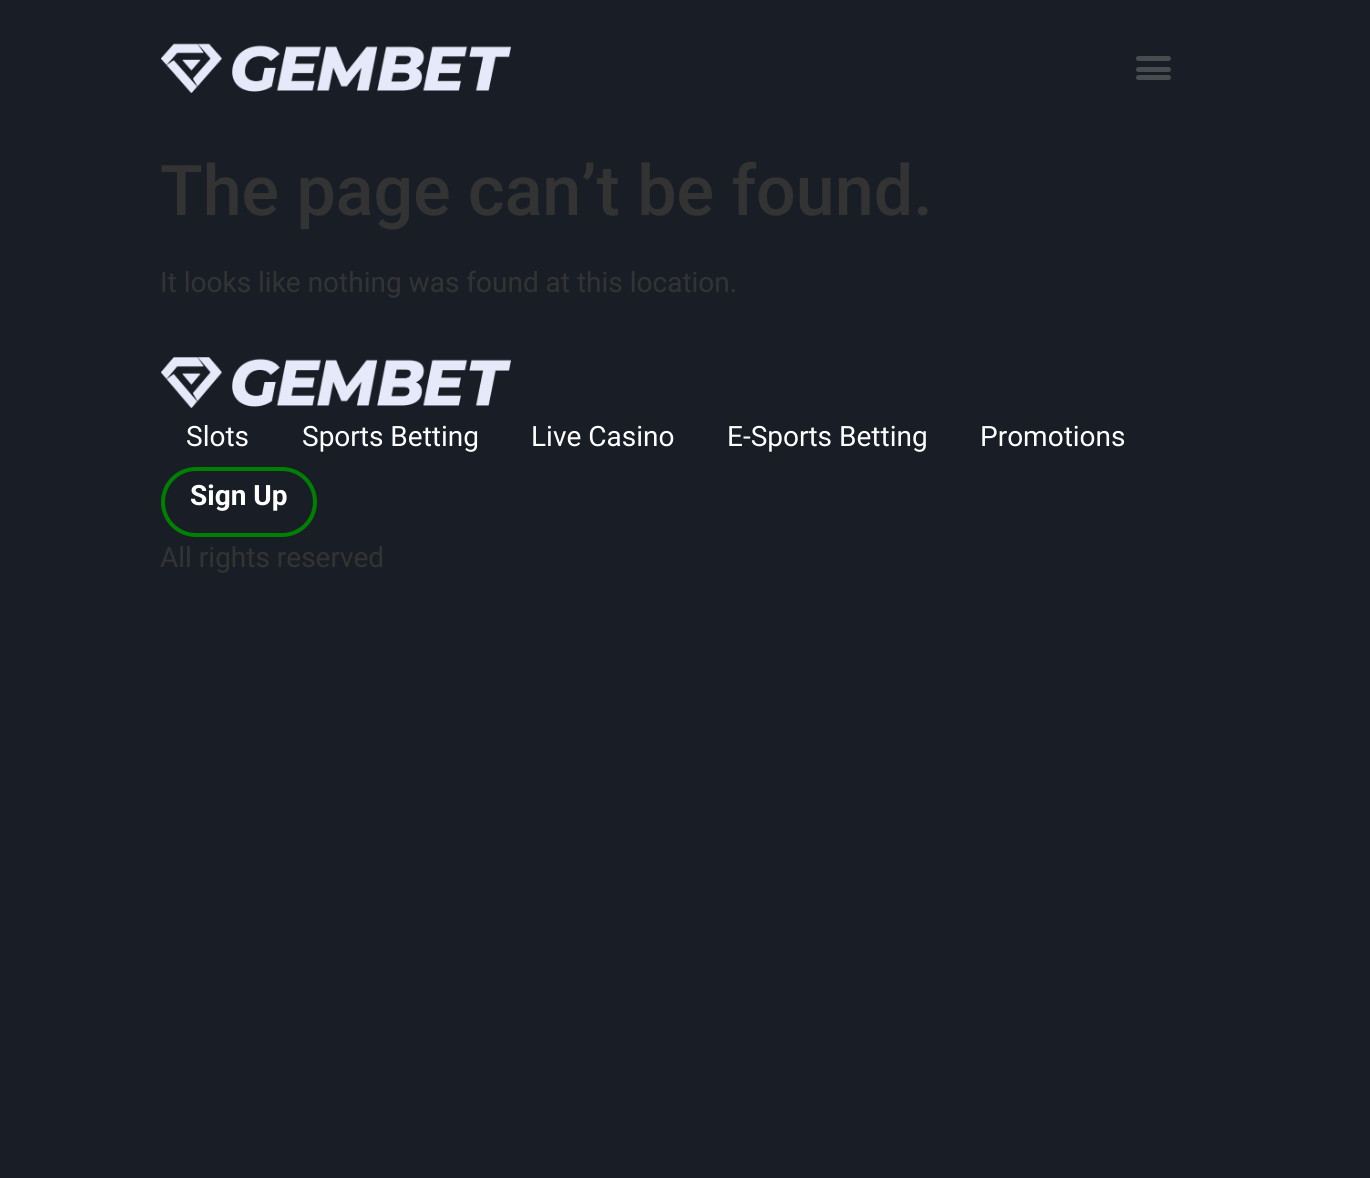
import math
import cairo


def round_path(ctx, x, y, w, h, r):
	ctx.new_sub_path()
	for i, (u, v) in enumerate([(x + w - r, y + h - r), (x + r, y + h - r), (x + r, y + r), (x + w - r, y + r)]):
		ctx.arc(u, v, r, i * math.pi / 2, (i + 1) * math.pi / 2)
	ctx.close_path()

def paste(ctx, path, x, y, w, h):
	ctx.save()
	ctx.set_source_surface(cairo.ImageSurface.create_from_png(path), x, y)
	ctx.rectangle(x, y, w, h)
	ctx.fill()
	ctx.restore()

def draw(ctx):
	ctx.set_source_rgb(0.098, 0.118, 0.149)
	ctx.paint()
	paste(ctx, 'media/1.png', 161, 43, 350, 50)
	ctx.set_source_rgb(0.286, 0.298, 0.31)
	round_path(ctx, 1136, 67, 35, 5, 2.5)
	ctx.fill()
	round_path(ctx, 1136, 56, 35, 5, 2.5)
	ctx.fill()
	round_path(ctx, 1136, 75, 35, 5, 2.5)
	ctx.fill()
	ctx.select_font_face('Roboto Medium')
	ctx.set_font_size(70)
	ctx.set_source_rgb(0.2, 0.2, 0.2)
	ctx.move_to(160, 215)
	ctx.show_text('The page can’t be found.')
	ctx.select_font_face('Roboto')
	ctx.set_font_size(28)
	ctx.move_to(160, 292)
	ctx.show_text('It looks like nothing was found at this location.')
	paste(ctx, 'media/2.png', 161, 357, 350, 51)
	ctx.set_source_rgb(1, 1, 1)
	for x, y, s in [
		(186, 446, 'Slots'),
		(302, 446, 'Sports Betting'),
		(531, 446, 'Live Casino'),
		(727, 446, 'E-Sports Betting'),
		(980, 446, 'Promotions'),
	]:
		ctx.move_to(x, y)
		ctx.show_text(s)
	round_path(ctx, 163, 469, 152, 66, 33)
	ctx.set_source_rgb(0, 0.502, 0)
	ctx.set_line_width(4)
	ctx.stroke()
	ctx.select_font_face('Roboto', cairo.FONT_SLANT_NORMAL, cairo.FONT_WEIGHT_BOLD)
	ctx.set_source_rgb(1, 1, 1)
	ctx.move_to(190, 505)
	ctx.show_text('Sign Up')
	ctx.select_font_face('Roboto')
	ctx.set_source_rgb(0.2, 0.2, 0.2)
	ctx.move_to(160, 567)
	ctx.show_text('All rights reserved')


surface = cairo.ImageSurface(cairo.FORMAT_RGB24, 1370, 1178)
ctx = cairo.Context(surface)
options = cairo.FontOptions()
options.set_hint_metrics(cairo.HINT_METRICS_OFF)
options.set_hint_style(cairo.HINT_STYLE_NONE)
ctx.set_font_options(options)
ctx.set_miter_limit(4)
draw(ctx)
surface.write_to_png('image.png')
